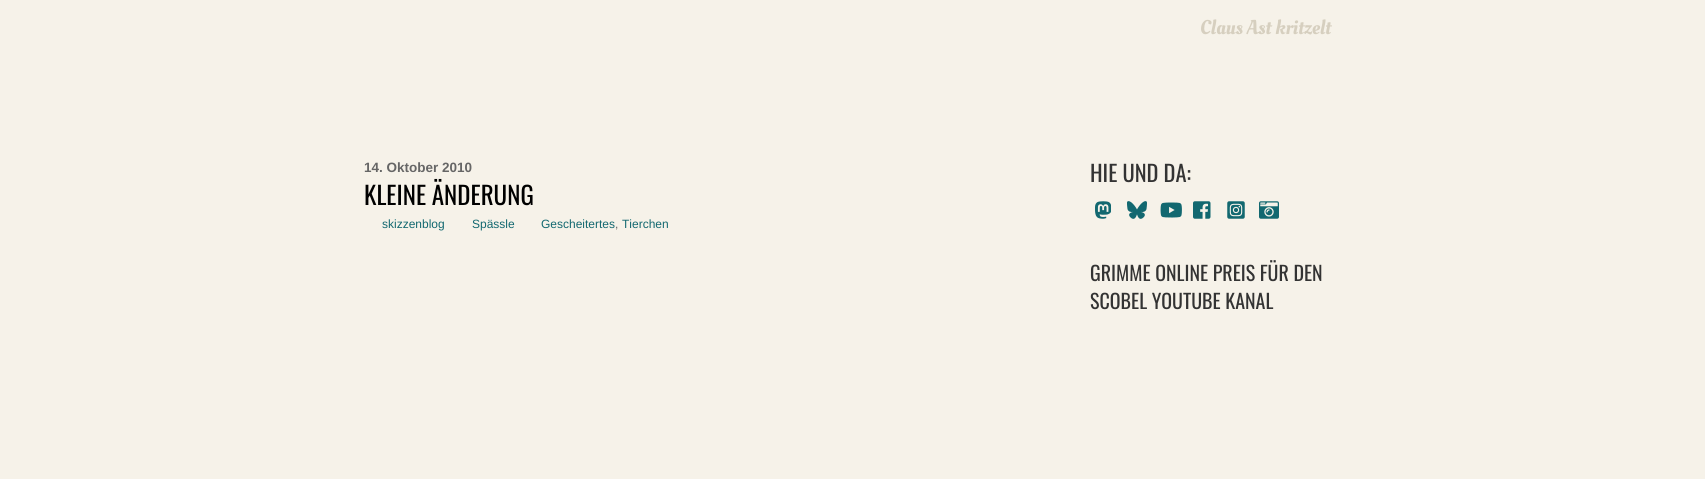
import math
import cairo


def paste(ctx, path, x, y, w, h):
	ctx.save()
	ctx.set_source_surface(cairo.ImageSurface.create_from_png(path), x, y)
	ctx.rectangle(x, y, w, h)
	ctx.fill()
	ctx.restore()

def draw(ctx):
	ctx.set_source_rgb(0.961, 0.949, 0.914)
	ctx.paint()
	ctx.select_font_face('Oleo Script')
	ctx.set_font_size(20)
	ctx.set_source_rgb(0.839, 0.812, 0.749)
	ctx.move_to(1200, 34)
	ctx.show_text('Claus Ast kritzelt')
	ctx.select_font_face('Liberation Sans', cairo.FONT_SLANT_NORMAL, cairo.FONT_WEIGHT_BOLD)
	ctx.set_font_size(13.5)
	ctx.set_source_rgb(0.4, 0.4, 0.4)
	ctx.move_to(364, 172)
	ctx.show_text('14. Oktober 2010')
	ctx.select_font_face('Oswald')
	ctx.set_font_size(25)
	ctx.set_source_rgb(0, 0, 0)
	ctx.move_to(364, 205)
	ctx.show_text('KLEINE ÄNDERUNG')
	ctx.select_font_face('Liberation Sans')
	ctx.set_font_size(12)
	ctx.set_source_rgb(0.071, 0.408, 0.439)
	for x, y, s in [
		(382, 228, 'skizzenblog'),
		(472, 228, 'Spässle'),
		(541, 228, 'Gescheitertes'),
	]:
		ctx.move_to(x, y)
		ctx.show_text(s)
	ctx.set_source_rgb(0.4, 0.4, 0.4)
	ctx.move_to(615, 228)
	ctx.show_text(',')
	ctx.set_source_rgb(0.071, 0.408, 0.439)
	ctx.move_to(622, 228)
	ctx.show_text('Tierchen')
	ctx.select_font_face('Oswald')
	ctx.set_font_size(22.5)
	ctx.set_source_rgb(0.2, 0.2, 0.2)
	ctx.move_to(1090, 182)
	ctx.show_text('HIE UND DA:')
	paste(ctx, 'media/1.png', 1095, 201, 16, 18)
	paste(ctx, 'media/2.png', 1127, 201, 20, 18)
	paste(ctx, 'media/3.png', 1160, 202, 22, 16)
	paste(ctx, 'media/4.png', 1193, 201, 18, 18)
	paste(ctx, 'media/5.png', 1227, 201, 18, 18)
	paste(ctx, 'media/6.png', 1259, 201, 20, 18)
	ctx.set_font_size(20)
	ctx.move_to(1090, 281)
	ctx.show_text('GRIMME ONLINE PREIS FÜR DEN')
	ctx.move_to(1090, 309)
	ctx.show_text('SCOBEL YOUTUBE KANAL')


surface = cairo.ImageSurface(cairo.FORMAT_RGB24, 1705, 479)
ctx = cairo.Context(surface)
options = cairo.FontOptions()
options.set_hint_metrics(cairo.HINT_METRICS_OFF)
options.set_hint_style(cairo.HINT_STYLE_NONE)
ctx.set_font_options(options)
ctx.set_miter_limit(4)
draw(ctx)
surface.write_to_png('image.png')
